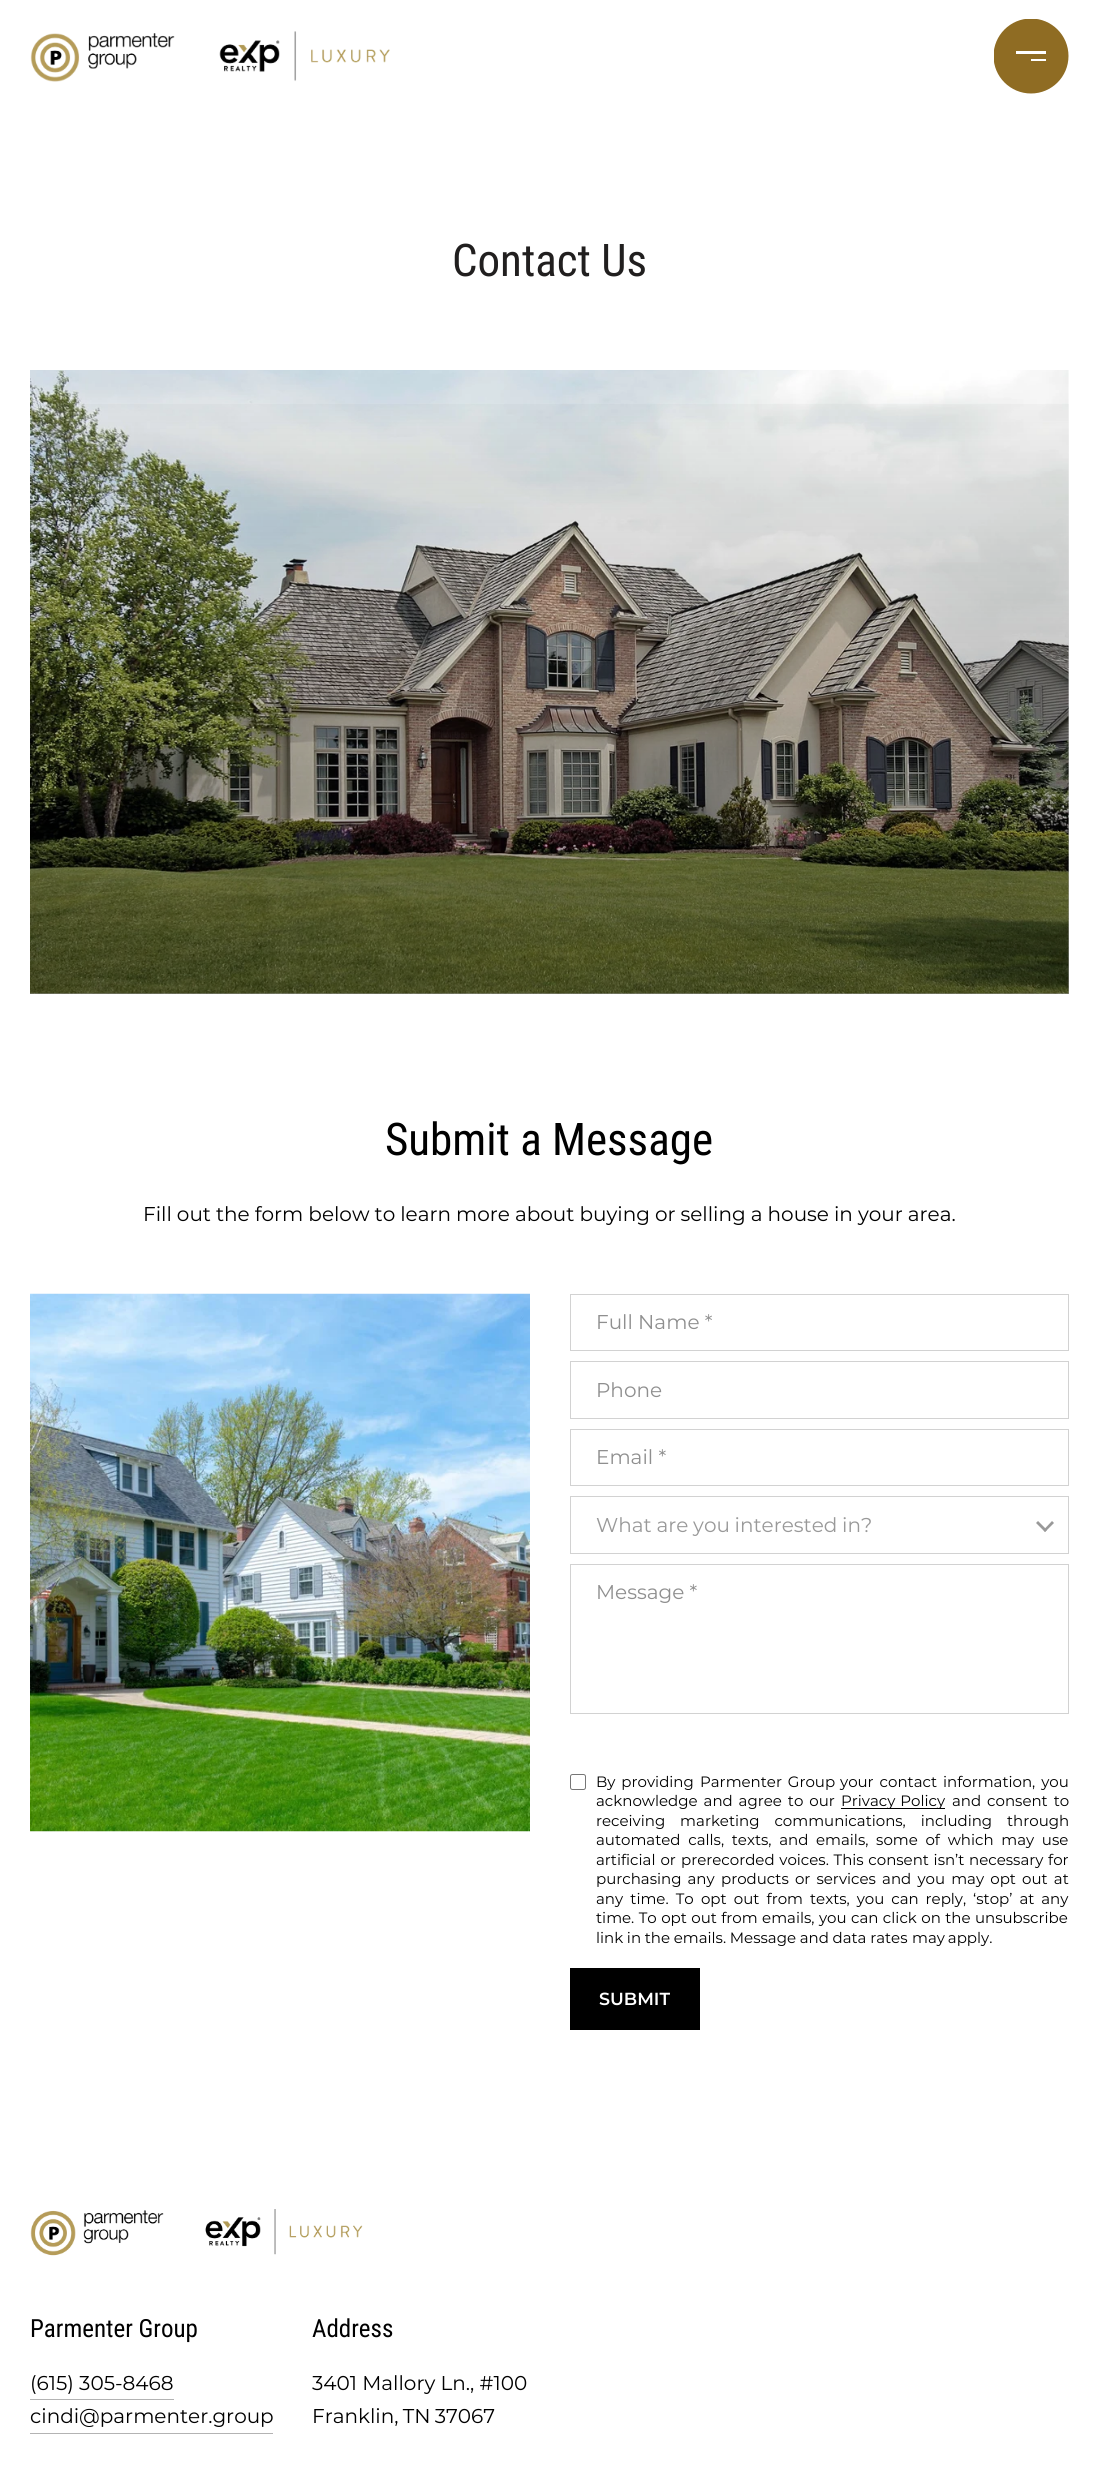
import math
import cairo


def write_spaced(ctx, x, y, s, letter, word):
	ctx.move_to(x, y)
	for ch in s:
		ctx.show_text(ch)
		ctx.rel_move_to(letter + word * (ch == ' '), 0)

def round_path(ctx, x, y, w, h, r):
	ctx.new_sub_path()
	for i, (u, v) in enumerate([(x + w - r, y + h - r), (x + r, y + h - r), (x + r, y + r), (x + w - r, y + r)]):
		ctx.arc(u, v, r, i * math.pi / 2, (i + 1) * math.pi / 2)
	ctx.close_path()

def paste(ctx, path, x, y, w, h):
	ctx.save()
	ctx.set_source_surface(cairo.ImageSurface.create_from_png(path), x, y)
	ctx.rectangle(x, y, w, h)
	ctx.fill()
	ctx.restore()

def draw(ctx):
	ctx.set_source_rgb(1, 1, 1)
	ctx.paint()
	paste(ctx, 'media/1.png', 30, 31, 360, 51)
	ctx.save()
	ctx.rectangle(994, 19, 75, 75)
	ctx.clip()
	ctx.set_source_rgb(0.561, 0.424, 0.137)
	ctx.arc(1031, 56, 37.5, 0, 2 * math.pi)
	ctx.fill()
	ctx.restore()
	ctx.set_source_rgb(1, 1, 1)
	ctx.rectangle(1016, 51, 30, 3)
	ctx.fill()
	ctx.rectangle(1031, 59, 15, 2)
	ctx.fill()
	ctx.select_font_face('Roboto Condensed')
	ctx.set_font_size(45)
	ctx.set_source_rgb(0.129, 0.122, 0.122)
	ctx.move_to(452, 276)
	ctx.show_text('Contact Us')
	paste(ctx, 'media/2.png', 30, 370, 1039, 624)
	gradient = cairo.LinearGradient(549, 370, 549, 994)
	gradient.add_color_stop_rgba(0, 0, 0, 0, 0)
	gradient.add_color_stop_rgba(1, 0, 0, 0, 0.4)
	ctx.set_source(gradient)
	ctx.rectangle(30, 404, 1039, 590)
	ctx.fill()
	ctx.set_source_rgb(0, 0, 0)
	ctx.move_to(385, 1155)
	ctx.show_text('Submit a Message')
	ctx.select_font_face('Montserrat')
	ctx.set_font_size(20)
	write_spaced(ctx, 143, 1221, 'Fill out the form below to learn more about buying or selling a house in your area.', 0, -0.2)
	paste(ctx, 'media/3.png', 30, 1293, 500, 539)
	ctx.rectangle(570.5, 1294.5, 498, 56)
	ctx.set_source_rgb(0.824, 0.824, 0.824)
	ctx.set_line_width(1)
	ctx.stroke()
	ctx.set_source_rgb(0.561, 0.561, 0.561)
	ctx.move_to(596, 1329)
	ctx.show_text('Full Name *')
	ctx.rectangle(570.5, 1361.5, 498, 57)
	ctx.set_source_rgb(0.824, 0.824, 0.824)
	ctx.stroke()
	ctx.set_source_rgb(0.561, 0.561, 0.561)
	ctx.move_to(596, 1397)
	ctx.show_text('Phone')
	ctx.rectangle(570.5, 1429.5, 498, 56)
	ctx.set_source_rgb(0.824, 0.824, 0.824)
	ctx.stroke()
	ctx.set_source_rgb(0.561, 0.561, 0.561)
	ctx.move_to(596, 1464)
	ctx.show_text('Email *')
	ctx.rectangle(570.5, 1496.5, 498, 57)
	ctx.set_source_rgb(0.824, 0.824, 0.824)
	ctx.stroke()
	ctx.set_source_rgb(0.6, 0.6, 0.6)
	write_spaced(ctx, 596, 1532, 'What are you interested in?', 0, -0.5)
	ctx.new_path()
	ctx.move_to(1045, 1532)
	ctx.line_to(1036, 1523)
	ctx.line_to(1038, 1521)
	ctx.line_to(1047, 1530)
	ctx.close_path()
	ctx.fill()
	ctx.new_path()
	ctx.move_to(1045, 1532)
	ctx.line_to(1043.5, 1530)
	ctx.line_to(1052, 1521)
	ctx.line_to(1054, 1523)
	ctx.close_path()
	ctx.fill()
	ctx.rectangle(570.5, 1564.5, 498, 149)
	ctx.set_source_rgb(0.824, 0.824, 0.824)
	ctx.stroke()
	ctx.set_source_rgb(0.561, 0.561, 0.561)
	ctx.move_to(596, 1599)
	ctx.show_text('Message *')
	round_path(ctx, 570.5, 1774.5, 15, 15, 2)
	ctx.set_source_rgb(0.463, 0.463, 0.463)
	ctx.stroke()
	ctx.set_font_size(15)
	ctx.set_source_rgb(0, 0, 0)
	for x, y, s in [
		(596, 1787, 'By providing'),
		(700, 1787, 'Parmenter Group'),
		(840, 1787, 'your contact information, you'),
		(596, 1806, 'acknowledge and agree to our'),
	]:
		write_spaced(ctx, x, y, s, 0, 2)
	ctx.rectangle(841, 1808, 104, 1)
	ctx.fill()
	write_spaced(ctx, 841, 1806, 'Privacy Policy', 0, 1)
	write_spaced(ctx, 952, 1806, 'and consent to', 0, 2)
	write_spaced(ctx, 596, 1826, 'receiving marketing communications, including through', 0, 11)
	write_spaced(ctx, 596, 1845, 'automated calls, texts, and emails, some of which may use', 0, 3.75)
	write_spaced(ctx, 596, 1865, 'artificial or', 0, 1)
	write_spaced(ctx, 681, 1865, 'prerecorded voices. This consent isn’t necessary for', 0, 0.75)
	write_spaced(ctx, 596, 1884, 'purchasing any', 0, 2)
	write_spaced(ctx, 721, 1884, 'products or services and you may opt out at', 0, 2.25)
	write_spaced(ctx, 596, 1904, 'any time. To opt out from', 0, 3.25)
	write_spaced(ctx, 810, 1904, 'texts, you can reply, ‘stop’ at any', 0, 3)
	write_spaced(ctx, 596, 1923, 'time. To opt out from emails, you', 0, 0.5)
	write_spaced(ctx, 851, 1923, 'can click on the unsubscribe', 0, 0.5)
	write_spaced(ctx, 596, 1943, 'link in the emails. Message and data rates', 0, -0.25)
	write_spaced(ctx, 912, 1943, 'may apply.', 0, -1)
	ctx.rectangle(570, 1968, 130, 62)
	ctx.fill()
	ctx.select_font_face('Montserrat SemiBold')
	ctx.set_font_size(17.5)
	ctx.set_source_rgb(1, 1, 1)
	ctx.move_to(599, 2005)
	ctx.show_text('SUBMIT')
	paste(ctx, 'media/4.png', 30, 2209, 333, 47)
	ctx.select_font_face('Roboto Condensed')
	ctx.set_font_size(25)
	ctx.set_source_rgb(0, 0, 0)
	ctx.move_to(30, 2337)
	ctx.show_text('Parmenter Group')
	ctx.select_font_face('Montserrat')
	ctx.set_font_size(20)
	ctx.move_to(30, 2390)
	ctx.show_text('(615) 305-8468')
	ctx.set_source_rgb(0.702, 0.702, 0.702)
	ctx.rectangle(30, 2399, 144, 1)
	ctx.fill()
	ctx.set_source_rgb(0, 0, 0)
	ctx.move_to(30, 2423)
	ctx.show_text('cindi@parmenter.group')
	ctx.set_source_rgb(0.702, 0.702, 0.702)
	ctx.rectangle(30, 2433, 243, 1)
	ctx.fill()
	ctx.select_font_face('Roboto Condensed')
	ctx.set_font_size(25)
	ctx.set_source_rgb(0, 0, 0)
	ctx.move_to(312, 2337)
	ctx.show_text('Address')
	ctx.select_font_face('Montserrat')
	ctx.set_font_size(20)
	ctx.move_to(312, 2390)
	ctx.show_text('3401 Mallory Ln., #100')
	write_spaced(ctx, 312, 2423, 'Franklin, TN 37067', 0, -1)


surface = cairo.ImageSurface(cairo.FORMAT_RGB24, 1098, 2485)
ctx = cairo.Context(surface)
options = cairo.FontOptions()
options.set_hint_metrics(cairo.HINT_METRICS_OFF)
options.set_hint_style(cairo.HINT_STYLE_NONE)
ctx.set_font_options(options)
ctx.set_miter_limit(4)
draw(ctx)
surface.write_to_png('image.png')
